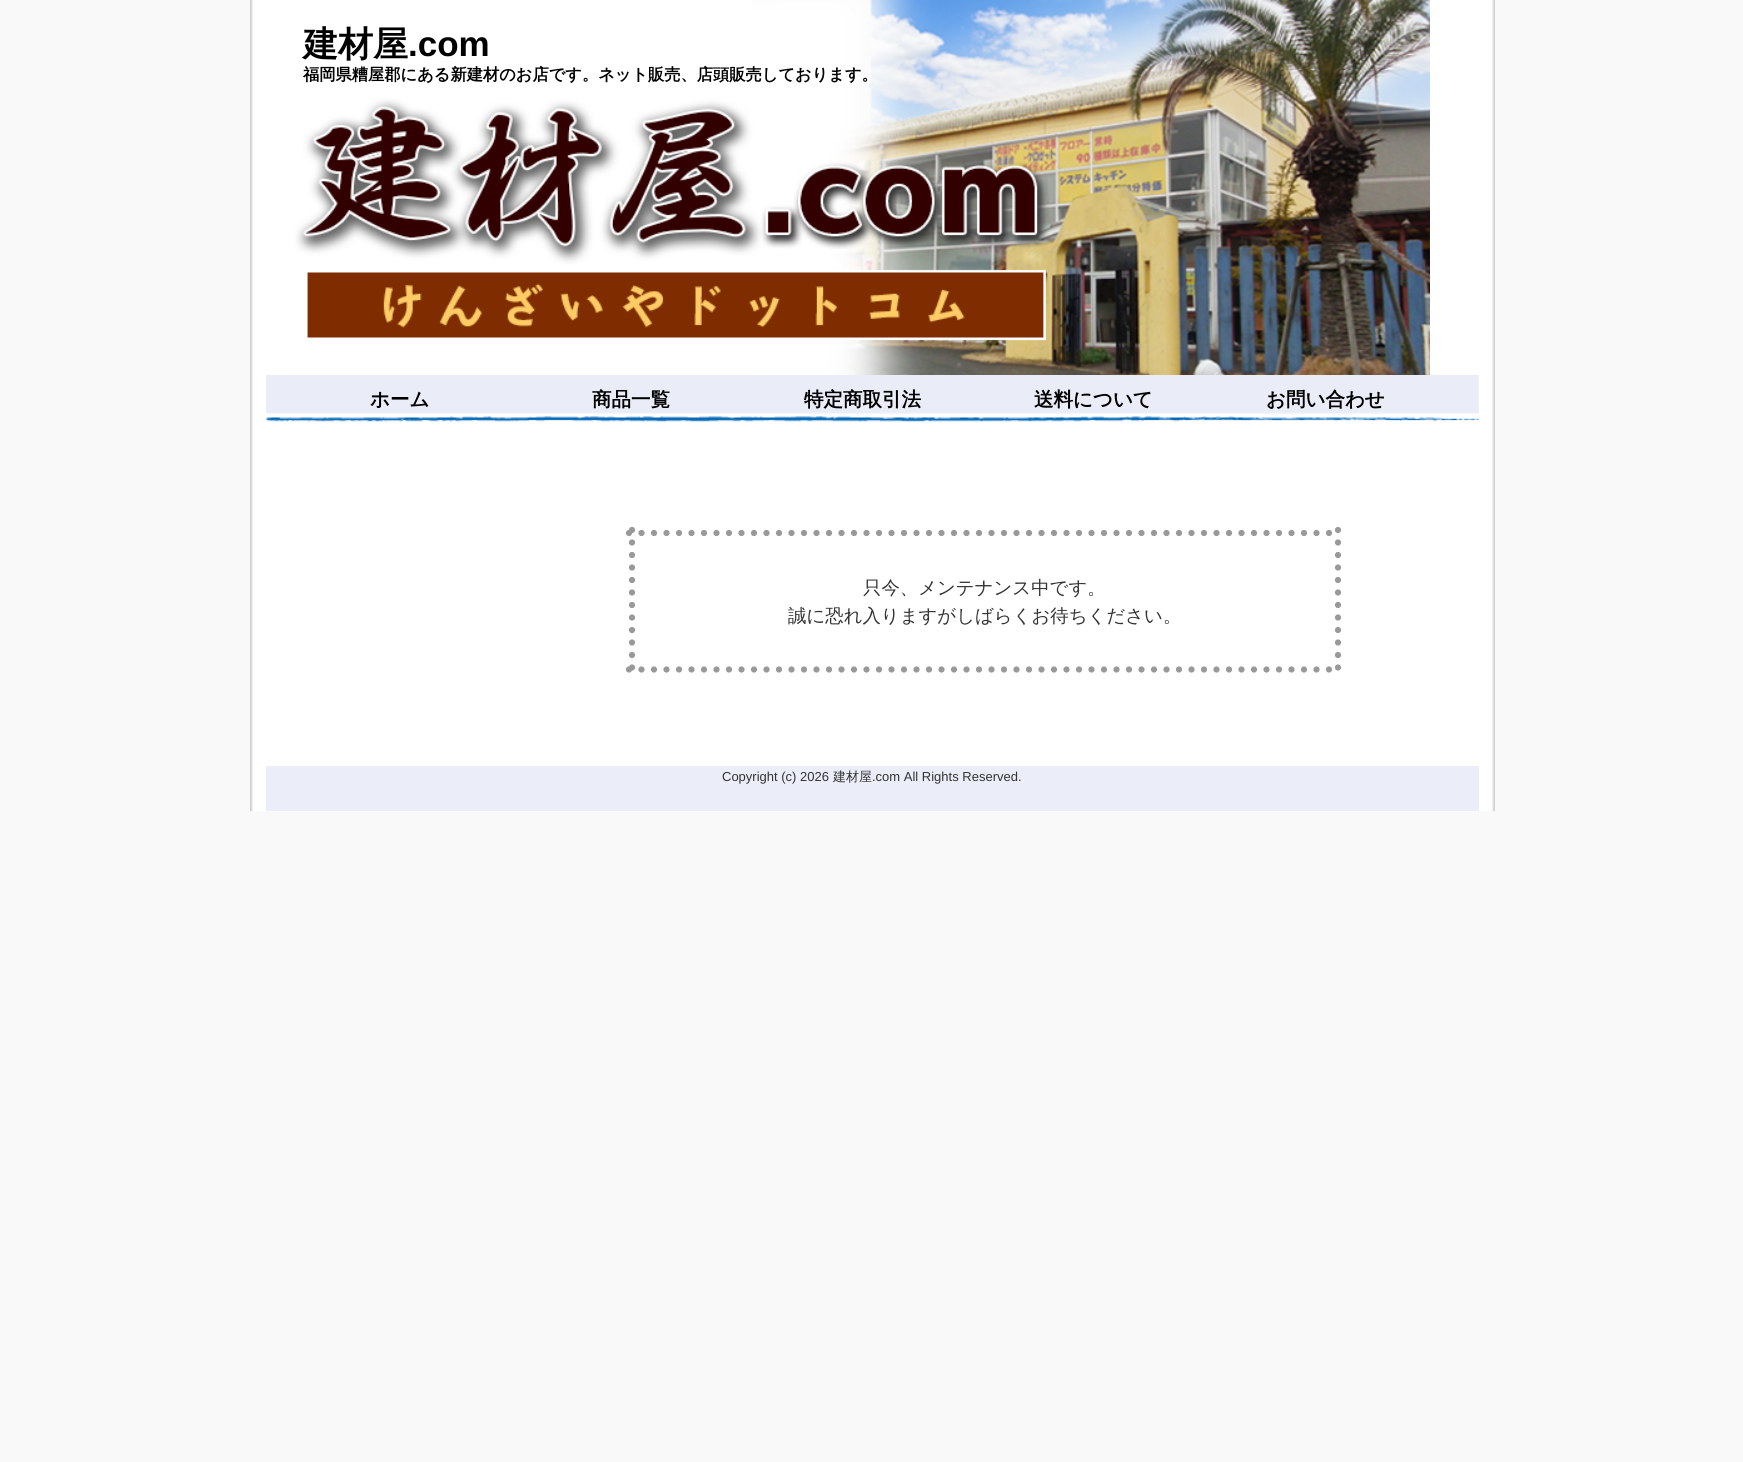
import math
import cairo


def paste(ctx, path, x, y, w, h):
	ctx.save()
	ctx.set_source_surface(cairo.ImageSurface.create_from_png(path), x, y)
	ctx.rectangle(x, y, w, h)
	ctx.fill()
	ctx.restore()

def draw(ctx):
	ctx.set_source_rgb(0.976, 0.976, 0.976)
	ctx.paint()
	paste(ctx, 'media/1.png', 250, 0, 1245, 812)
	paste(ctx, 'media/2.png', 295, 0, 1135, 375)
	ctx.select_font_face('WenQuanYi Zen Hei', cairo.FONT_SLANT_NORMAL, cairo.FONT_WEIGHT_BOLD)
	ctx.set_font_size(35)
	ctx.set_source_rgb(0, 0, 0)
	ctx.move_to(303, 56)
	ctx.show_text('建材屋')
	ctx.select_font_face('Liberation Sans', cairo.FONT_SLANT_NORMAL, cairo.FONT_WEIGHT_BOLD)
	ctx.move_to(408, 56)
	ctx.show_text('.com')
	ctx.select_font_face('WenQuanYi Zen Hei', cairo.FONT_SLANT_NORMAL, cairo.FONT_WEIGHT_BOLD)
	ctx.set_font_size(16.25)
	ctx.move_to(303, 80)
	ctx.show_text('福岡県糟屋郡にある新建材のお店です。ネット販売、店頭販売しております。')
	paste(ctx, 'media/3.png', 266, 375, 1213, 47)
	ctx.set_font_size(19.5)
	for x, y, s in [
		(370, 406, 'ホーム'),
		(592, 406, '商品一覧'),
		(804, 406, '特定商取引法'),
		(1034, 406, '送料について'),
		(1266, 406, 'お問い合わせ'),
	]:
		ctx.move_to(x, y)
		ctx.show_text(s)
	ctx.new_path()
	ctx.move_to(629, 533)
	ctx.line_to(1341, 533)
	ctx.set_source_rgb(0.6, 0.6, 0.6)
	ctx.set_line_width(6.2)
	ctx.set_line_cap(cairo.LINE_CAP_ROUND)
	ctx.set_dash([0, 12.5])
	ctx.stroke()
	ctx.new_path()
	ctx.move_to(1338, 530)
	ctx.line_to(1338, 672.5)
	ctx.stroke()
	ctx.new_path()
	ctx.move_to(629, 669.5)
	ctx.line_to(1341, 669.5)
	ctx.stroke()
	ctx.new_path()
	ctx.move_to(632, 530)
	ctx.line_to(632, 672.5)
	ctx.stroke()
	ctx.select_font_face('WenQuanYi Zen Hei Medium')
	ctx.set_font_size(18.4)
	ctx.set_source_rgb(0.2, 0.2, 0.2)
	ctx.move_to(863, 594)
	ctx.show_text('只今、メンテナンス中です。')
	ctx.move_to(788, 622)
	ctx.show_text('誠に恐れ入りますがしばらくお待ちください。')
	ctx.set_source_rgb(0.918, 0.929, 0.969)
	ctx.rectangle(266, 766, 1213, 45)
	ctx.fill()
	ctx.select_font_face('Liberation Sans')
	ctx.set_font_size(13)
	ctx.set_source_rgb(0.2, 0.2, 0.2)
	ctx.move_to(722, 781)
	ctx.show_text('Copyright (c) 2026')
	ctx.select_font_face('WenQuanYi Zen Hei Medium')
	ctx.move_to(833, 781)
	ctx.show_text('建材屋')
	ctx.select_font_face('Liberation Sans')
	ctx.move_to(872, 781)
	ctx.show_text('.com All Rights Reserved.')


surface = cairo.ImageSurface(cairo.FORMAT_RGB24, 1743, 1462)
ctx = cairo.Context(surface)
options = cairo.FontOptions()
options.set_hint_metrics(cairo.HINT_METRICS_OFF)
options.set_hint_style(cairo.HINT_STYLE_NONE)
ctx.set_font_options(options)
ctx.set_miter_limit(4)
draw(ctx)
surface.write_to_png('image.png')
